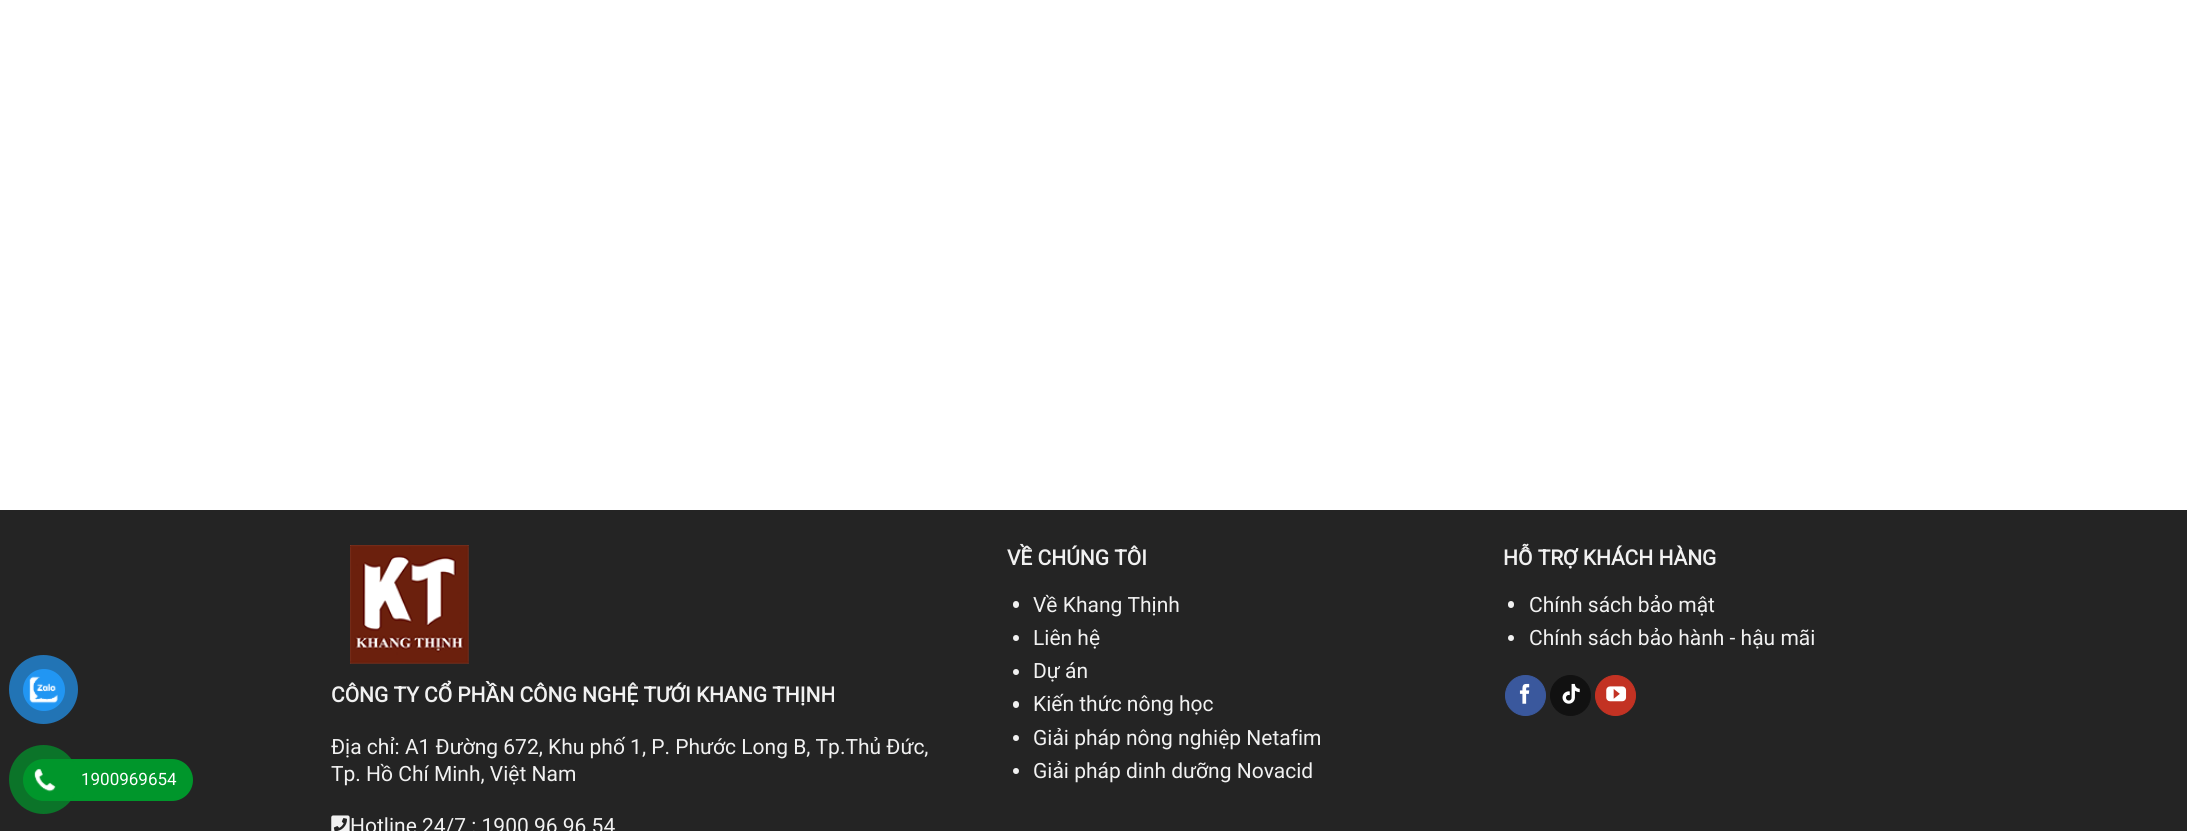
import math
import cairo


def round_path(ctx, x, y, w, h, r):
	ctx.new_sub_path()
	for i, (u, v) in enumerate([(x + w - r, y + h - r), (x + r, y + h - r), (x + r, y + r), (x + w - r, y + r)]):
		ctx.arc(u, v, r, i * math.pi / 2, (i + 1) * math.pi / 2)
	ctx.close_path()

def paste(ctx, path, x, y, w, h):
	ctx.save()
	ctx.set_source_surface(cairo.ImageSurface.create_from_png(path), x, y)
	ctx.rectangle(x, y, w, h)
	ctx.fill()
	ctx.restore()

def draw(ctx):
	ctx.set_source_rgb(1, 1, 1)
	ctx.paint()
	ctx.set_source_rgb(0.141, 0.141, 0.141)
	ctx.rectangle(0, 510, 2187, 321)
	ctx.fill()
	ctx.set_source_rgb(0.133, 0.455, 0.71)
	ctx.arc(43.5, 689.5, 34.5, 0, 2 * math.pi)
	ctx.fill()
	ctx.set_source_rgb(0.129, 0.588, 0.953)
	ctx.arc(44, 690, 21, 0, 2 * math.pi)
	ctx.fill()
	paste(ctx, 'media/1.png', 29, 676, 29, 28)
	ctx.set_source_rgb(0, 0.588, 0.169)
	round_path(ctx, 28, 759, 165, 42, 21)
	ctx.fill()
	ctx.set_source_rgba(0, 0.588, 0.169, 0.7)
	ctx.arc(43.5, 779.5, 34.5, 0, 2 * math.pi)
	ctx.fill()
	ctx.set_source_rgb(0, 0.588, 0.169)
	ctx.arc(44, 780, 21, 0, 2 * math.pi)
	ctx.fill()
	paste(ctx, 'media/2.png', 34, 768, 22, 24)
	ctx.select_font_face('Roboto')
	ctx.set_font_size(17)
	ctx.set_source_rgb(1, 1, 1)
	ctx.move_to(81, 785)
	ctx.show_text('1900969654')
	ctx.select_font_face('Roboto', cairo.FONT_SLANT_NORMAL, cairo.FONT_WEIGHT_BOLD)
	ctx.set_font_size(21)
	ctx.set_source_rgb(0.945, 0.945, 0.945)
	ctx.move_to(1007, 565)
	ctx.show_text('VỀ CHÚNG TÔI')
	round_path(ctx, 1013, 601, 6, 7, 3)
	ctx.fill()
	ctx.select_font_face('Roboto')
	ctx.move_to(1033, 612)
	ctx.show_text('Về Khang Thịnh')
	ctx.new_path()
	ctx.arc(1016, 638, 3, 0, 2 * math.pi)
	ctx.fill()
	ctx.move_to(1033, 645)
	ctx.show_text('Liên hệ')
	ctx.new_path()
	ctx.arc(1016, 672, 3, 0, 2 * math.pi)
	ctx.fill()
	ctx.move_to(1033, 678)
	ctx.show_text('Dự án')
	round_path(ctx, 1013, 701, 6, 7, 3)
	ctx.fill()
	ctx.move_to(1033, 711)
	ctx.show_text('Kiến thức nông học')
	ctx.new_path()
	ctx.arc(1016, 738, 3, 0, 2 * math.pi)
	ctx.fill()
	ctx.move_to(1033, 745)
	ctx.show_text('Giải pháp nông nghiệp Netafim')
	ctx.new_path()
	ctx.arc(1016, 771, 3, 0, 2 * math.pi)
	ctx.fill()
	ctx.move_to(1033, 778)
	ctx.show_text('Giải pháp dinh dưỡng Novacid')
	ctx.select_font_face('Roboto', cairo.FONT_SLANT_NORMAL, cairo.FONT_WEIGHT_BOLD)
	ctx.move_to(1503, 565)
	ctx.show_text('HỖ TRỢ KHÁCH HÀNG')
	round_path(ctx, 1508, 601, 6, 7, 3)
	ctx.fill()
	ctx.select_font_face('Roboto')
	ctx.move_to(1529, 612)
	ctx.show_text('Chính sách bảo mật')
	ctx.new_path()
	ctx.arc(1511, 638, 3, 0, 2 * math.pi)
	ctx.fill()
	ctx.move_to(1529, 645)
	ctx.show_text('Chính sách bảo hành - hậu mãi')
	ctx.set_source_rgb(0.227, 0.345, 0.616)
	ctx.new_path()
	ctx.arc(1525.5, 695.5, 20, 0, 2 * math.pi)
	ctx.fill_preserve()
	ctx.set_line_width(1)
	ctx.stroke()
	paste(ctx, 'media/3.png', 1519, 683, 11, 21)
	ctx.set_source_rgb(0.067, 0.067, 0.067)
	ctx.arc(1570.5, 695.5, 20, 0, 2 * math.pi)
	ctx.fill_preserve()
	ctx.stroke()
	paste(ctx, 'media/4.png', 1562, 683, 18, 21)
	ctx.set_source_rgb(0.765, 0.196, 0.137)
	ctx.arc(1615.5, 695.5, 20, 0, 2 * math.pi)
	ctx.fill_preserve()
	ctx.stroke()
	paste(ctx, 'media/5.png', 1606, 686, 21, 16)
	paste(ctx, 'media/6.png', 350, 545, 119, 119)
	ctx.select_font_face('Roboto', cairo.FONT_SLANT_NORMAL, cairo.FONT_WEIGHT_BOLD)
	ctx.set_source_rgb(0.945, 0.945, 0.945)
	ctx.move_to(331, 702)
	ctx.show_text('CÔNG TY CỔ PHẦN CÔNG NGHỆ TƯỚI KHANG THỊNH')
	ctx.select_font_face('Roboto')
	ctx.move_to(331, 754)
	ctx.show_text('Địa chỉ: A1 Đường 672, Khu phố 1, P. Phước Long B, Tp.Thủ Đức,')
	ctx.move_to(331, 781)
	ctx.show_text('Tp. Hồ Chí Minh, Việt Nam')
	paste(ctx, 'media/7.png', 331, 815, 19, 16)
	ctx.move_to(350, 833)
	ctx.show_text('Hotline 24/7 : 1900 96 96 54')


surface = cairo.ImageSurface(cairo.FORMAT_RGB24, 2187, 831)
ctx = cairo.Context(surface)
options = cairo.FontOptions()
options.set_hint_metrics(cairo.HINT_METRICS_OFF)
options.set_hint_style(cairo.HINT_STYLE_NONE)
ctx.set_font_options(options)
ctx.set_miter_limit(4)
draw(ctx)
surface.write_to_png('image.png')
